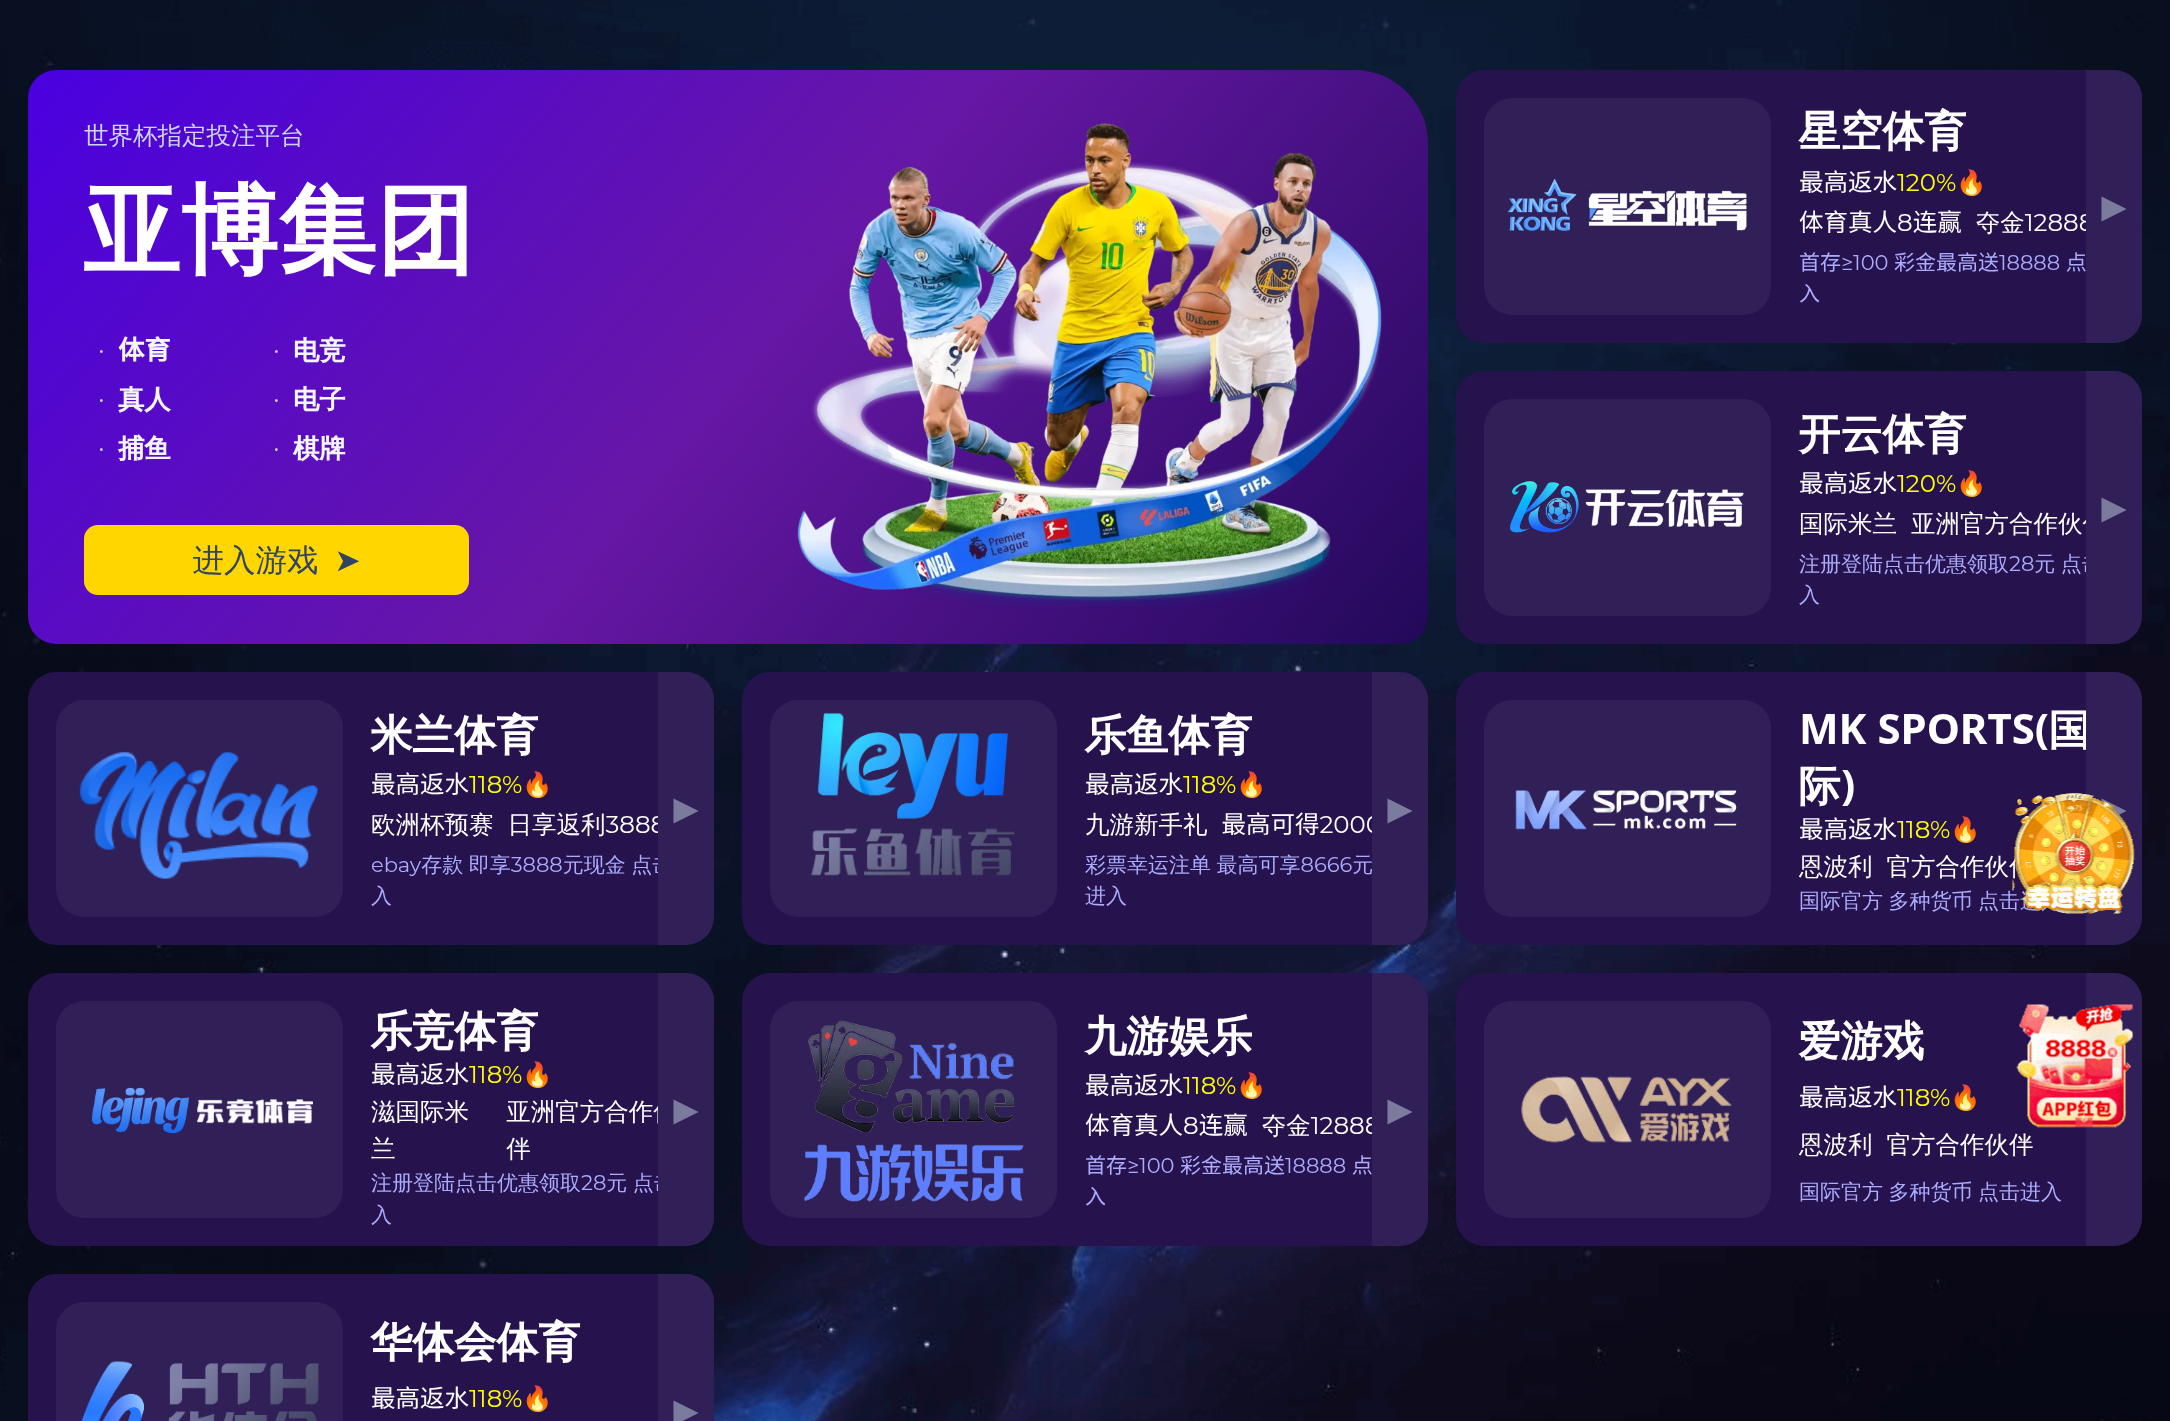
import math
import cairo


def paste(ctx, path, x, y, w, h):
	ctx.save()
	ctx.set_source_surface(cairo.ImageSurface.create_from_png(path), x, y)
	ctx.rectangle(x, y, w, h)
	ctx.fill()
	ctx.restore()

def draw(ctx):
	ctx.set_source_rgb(1, 1, 1)
	ctx.paint()
	paste(ctx, 'media/1.png', 0, 0, 2170, 1421)


surface = cairo.ImageSurface(cairo.FORMAT_RGB24, 2170, 1421)
ctx = cairo.Context(surface)
options = cairo.FontOptions()
options.set_hint_metrics(cairo.HINT_METRICS_OFF)
options.set_hint_style(cairo.HINT_STYLE_NONE)
ctx.set_font_options(options)
ctx.set_miter_limit(4)
draw(ctx)
surface.write_to_png('image.png')
